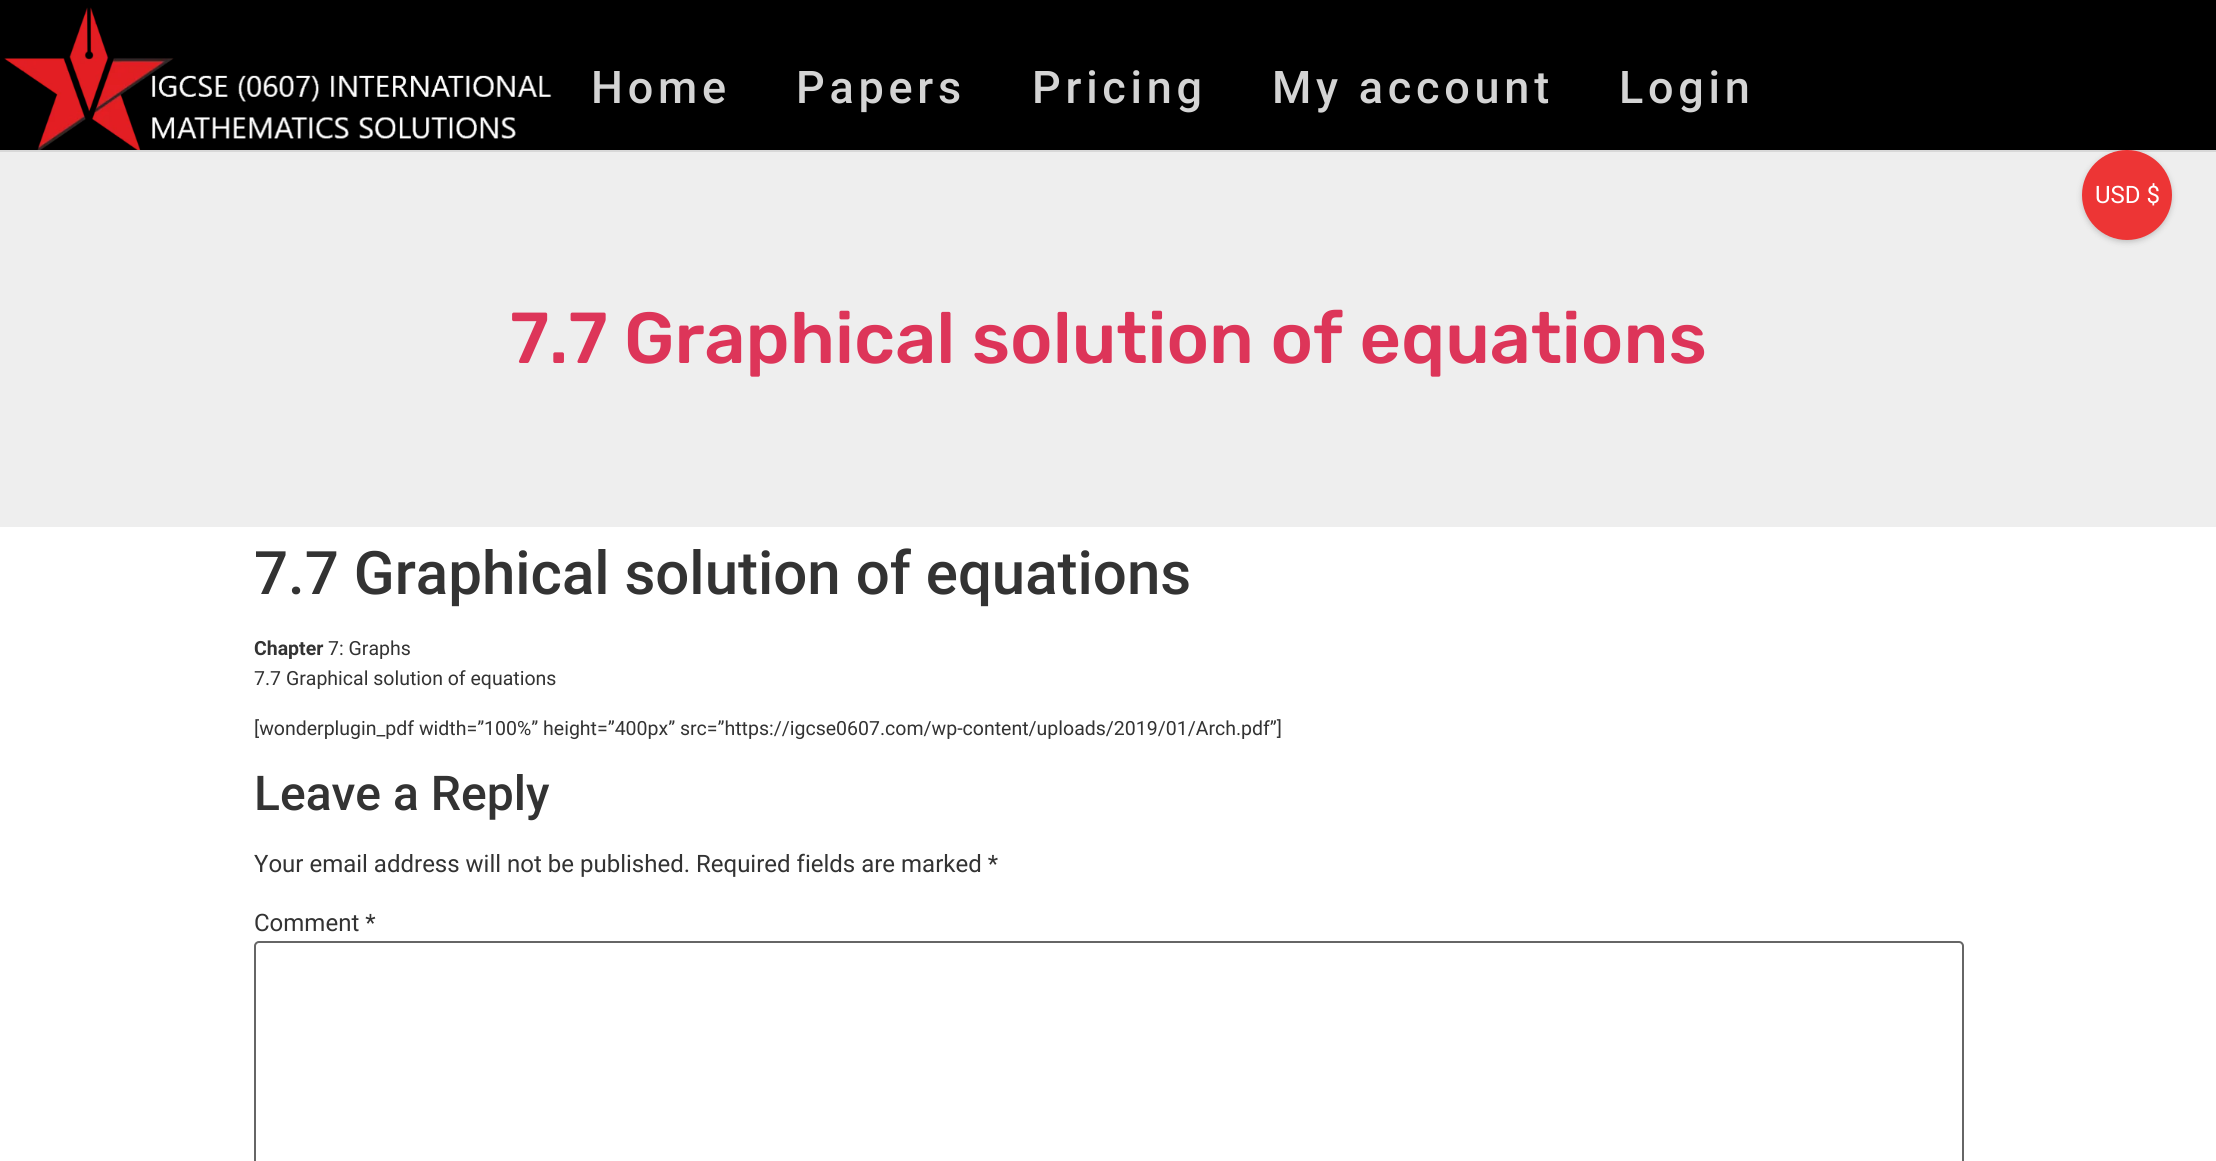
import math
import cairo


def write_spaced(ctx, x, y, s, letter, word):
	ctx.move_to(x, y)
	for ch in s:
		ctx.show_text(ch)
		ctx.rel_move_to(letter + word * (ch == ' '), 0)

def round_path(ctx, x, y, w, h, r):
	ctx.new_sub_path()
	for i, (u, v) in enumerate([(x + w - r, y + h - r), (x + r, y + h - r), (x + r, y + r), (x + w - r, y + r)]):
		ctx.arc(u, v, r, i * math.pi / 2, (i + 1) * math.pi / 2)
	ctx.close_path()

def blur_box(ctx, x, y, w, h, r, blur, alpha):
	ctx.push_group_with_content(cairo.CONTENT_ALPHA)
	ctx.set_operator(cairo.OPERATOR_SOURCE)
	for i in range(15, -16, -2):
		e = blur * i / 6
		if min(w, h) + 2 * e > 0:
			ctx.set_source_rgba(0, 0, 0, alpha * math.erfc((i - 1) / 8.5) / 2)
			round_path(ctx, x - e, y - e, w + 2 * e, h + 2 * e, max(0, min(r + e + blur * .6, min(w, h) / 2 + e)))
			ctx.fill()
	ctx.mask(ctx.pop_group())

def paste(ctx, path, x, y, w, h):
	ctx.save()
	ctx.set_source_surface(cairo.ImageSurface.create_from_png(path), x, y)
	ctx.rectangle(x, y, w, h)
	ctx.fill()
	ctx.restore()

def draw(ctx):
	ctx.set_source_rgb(1, 1, 1)
	ctx.paint()
	ctx.set_source_rgb(0, 0, 0)
	ctx.rectangle(0, 0, 2216, 150)
	ctx.fill()
	ctx.set_source_rgb(0.847, 0.847, 0.847)
	ctx.rectangle(0, 150, 2216, 2)
	ctx.fill()
	paste(ctx, 'media/1.png', 4, 7, 548, 143)
	ctx.select_font_face('Roboto Medium')
	ctx.set_font_size(45)
	ctx.set_source_rgb(0.831, 0.831, 0.831)
	for x, y, s in [
		(591, 103, 'Home'),
		(796, 103, 'Papers'),
		(1032, 103, 'Pricing'),
		(1272, 103, 'My account'),
		(1619, 103, 'Login'),
	]:
		write_spaced(ctx, x, y, s, 4.75, 0)
	ctx.set_source_rgb(0.933, 0.933, 0.933)
	ctx.rectangle(0, 152, 2216, 375)
	ctx.fill()
	ctx.select_font_face('Rubik Medium')
	ctx.set_font_size(72)
	ctx.set_source_rgb(0.867, 0.208, 0.349)
	ctx.move_to(510, 363)
	ctx.show_text('7.7 Graphical solution of equations')
	ctx.set_source_rgb(0, 0, 0)
	blur_box(ctx, 2082, 152, 90, 90, 45, 3, 0.2)
	ctx.set_source_rgb(0.929, 0.208, 0.208)
	ctx.arc(2127, 195, 45, 0, 2 * math.pi)
	ctx.fill()
	ctx.select_font_face('Roboto')
	ctx.set_font_size(24)
	ctx.set_source_rgb(1, 1, 1)
	ctx.move_to(2095, 203)
	ctx.show_text('USD $')
	ctx.select_font_face('Roboto Medium')
	ctx.set_font_size(60)
	ctx.set_source_rgb(0.2, 0.2, 0.2)
	ctx.move_to(254, 594)
	ctx.show_text('7.7 Graphical solution of equations')
	ctx.select_font_face('Roboto', cairo.FONT_SLANT_NORMAL, cairo.FONT_WEIGHT_BOLD)
	ctx.set_font_size(19.5)
	ctx.move_to(254, 655)
	ctx.show_text('Chapter')
	ctx.select_font_face('Roboto')
	for x, y, s in [
		(328, 655, '7: Graphs'),
		(254, 685, '7.7 Graphical solution of equations'),
		(254, 735, '[wonderplugin_pdf width=”100%” height=”400px” src=”https://igcse0607.com/wp-content/uploads/2019/01/Arch.pdf”]'),
	]:
		ctx.move_to(x, y)
		ctx.show_text(s)
	ctx.select_font_face('Roboto Medium')
	ctx.set_font_size(48)
	ctx.move_to(254, 810)
	ctx.show_text('Leave a Reply')
	ctx.select_font_face('Roboto')
	ctx.set_font_size(24)
	ctx.move_to(254, 872)
	ctx.show_text('Your email address will not be published. Required fields are marked *')
	ctx.move_to(254, 931)
	ctx.show_text('Comment *')
	round_path(ctx, 255, 942, 1708, 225, 4)
	ctx.set_source_rgb(0.4, 0.4, 0.4)
	ctx.stroke()


surface = cairo.ImageSurface(cairo.FORMAT_RGB24, 2216, 1161)
ctx = cairo.Context(surface)
options = cairo.FontOptions()
options.set_hint_metrics(cairo.HINT_METRICS_OFF)
options.set_hint_style(cairo.HINT_STYLE_NONE)
ctx.set_font_options(options)
ctx.set_miter_limit(4)
draw(ctx)
surface.write_to_png('image.png')
